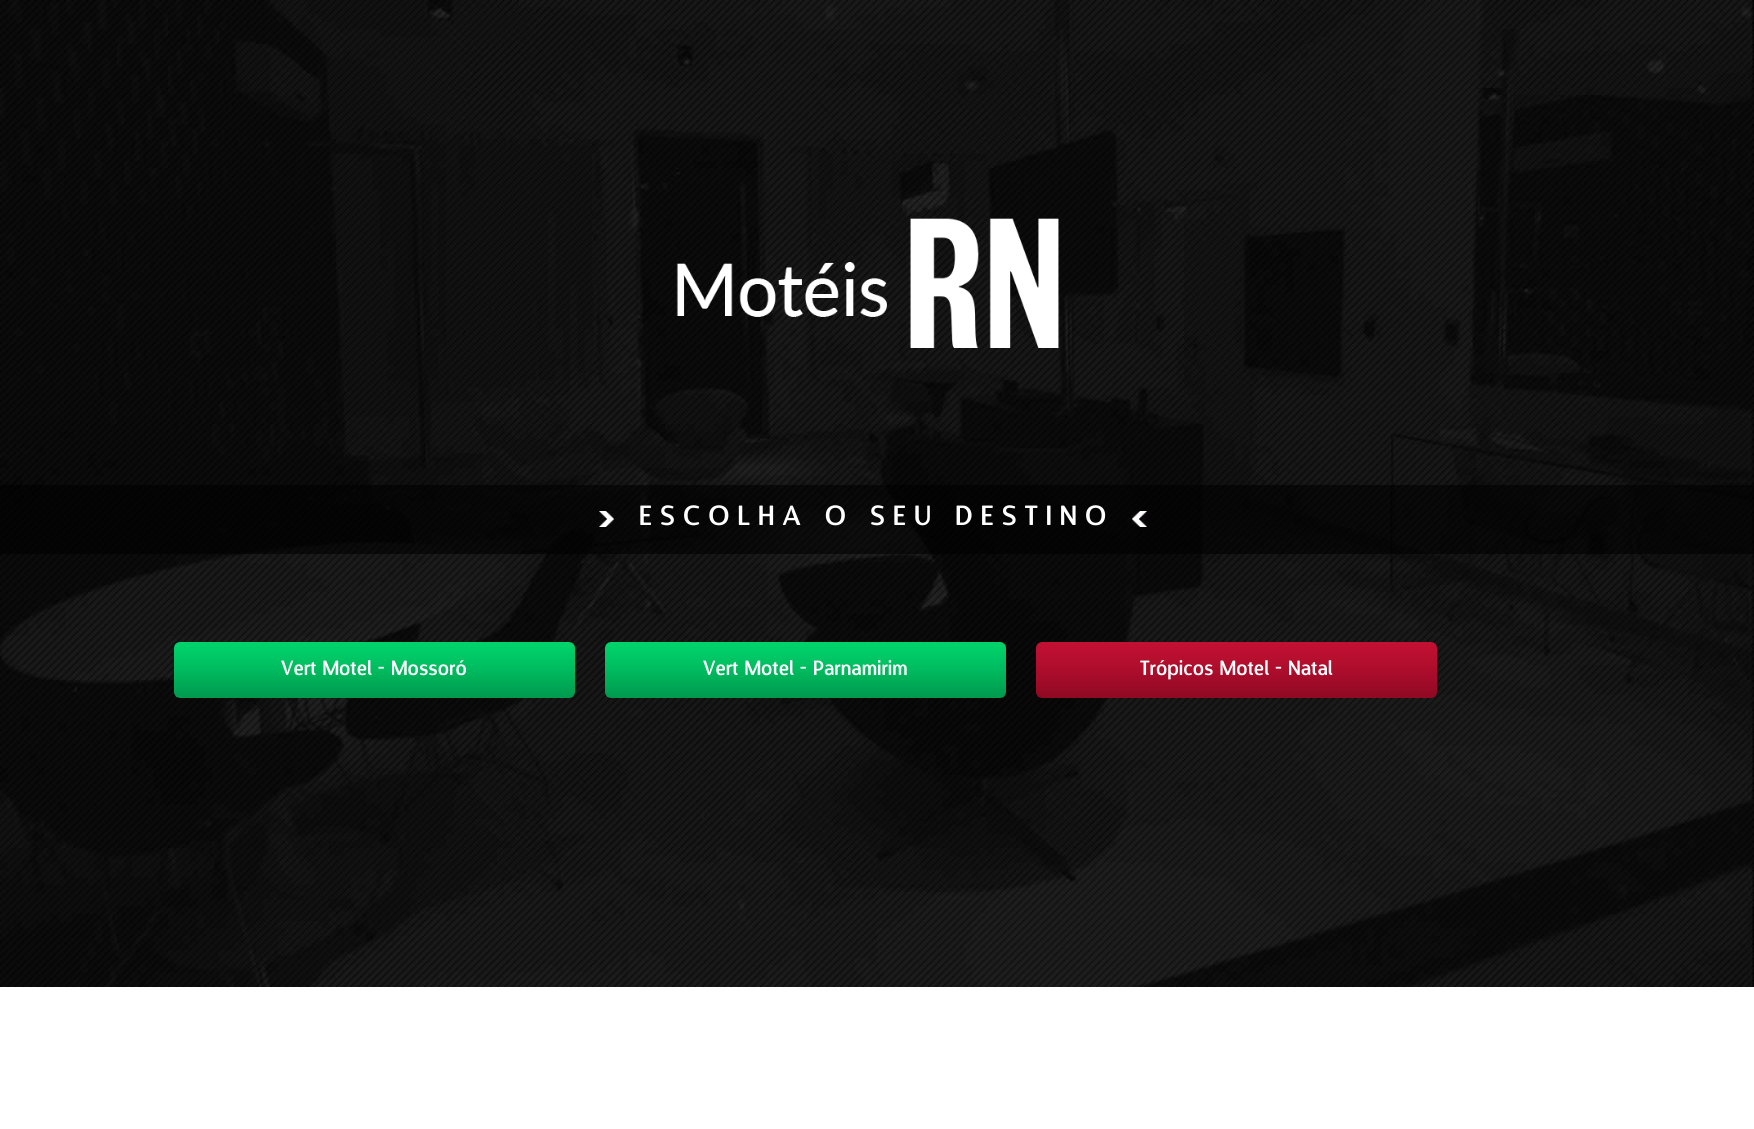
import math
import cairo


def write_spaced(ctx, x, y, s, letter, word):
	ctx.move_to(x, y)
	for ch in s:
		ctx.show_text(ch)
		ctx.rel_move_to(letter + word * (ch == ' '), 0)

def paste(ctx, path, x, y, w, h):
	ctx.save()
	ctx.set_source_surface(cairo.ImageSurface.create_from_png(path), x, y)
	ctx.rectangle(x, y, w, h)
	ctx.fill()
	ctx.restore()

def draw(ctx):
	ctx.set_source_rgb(1, 1, 1)
	ctx.paint()
	paste(ctx, 'media/1.png', 0, 0, 1754, 987)
	paste(ctx, 'media/2.png', 676, 218, 383, 130)
	ctx.set_source_rgba(0, 0, 0, 0.6)
	ctx.rectangle(0, 485, 1754, 69)
	ctx.fill()
	paste(ctx, 'media/3.png', 599, 511, 15, 16)
	ctx.select_font_face('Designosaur')
	ctx.set_font_size(27)
	ctx.set_source_rgb(1, 1, 1)
	write_spaced(ctx, 639, 525, 'ESCOLHA O SEU DESTINO', 8, 0)
	paste(ctx, 'media/4.png', 1132, 511, 15, 16)
	paste(ctx, 'media/5.png', 174, 642, 401, 56)
	ctx.set_font_size(20)
	ctx.move_to(281, 675)
	ctx.show_text('Vert Motel - Mossoró')
	paste(ctx, 'media/6.png', 605, 642, 401, 56)
	ctx.move_to(703, 675)
	ctx.show_text('Vert Motel - Parnamirim')
	paste(ctx, 'media/7.png', 1036, 642, 401, 56)
	ctx.move_to(1140, 675)
	ctx.show_text('Trópicos Motel - Natal')


surface = cairo.ImageSurface(cairo.FORMAT_RGB24, 1754, 1129)
ctx = cairo.Context(surface)
options = cairo.FontOptions()
options.set_hint_metrics(cairo.HINT_METRICS_OFF)
options.set_hint_style(cairo.HINT_STYLE_NONE)
ctx.set_font_options(options)
ctx.set_miter_limit(4)
draw(ctx)
surface.write_to_png('image.png')
